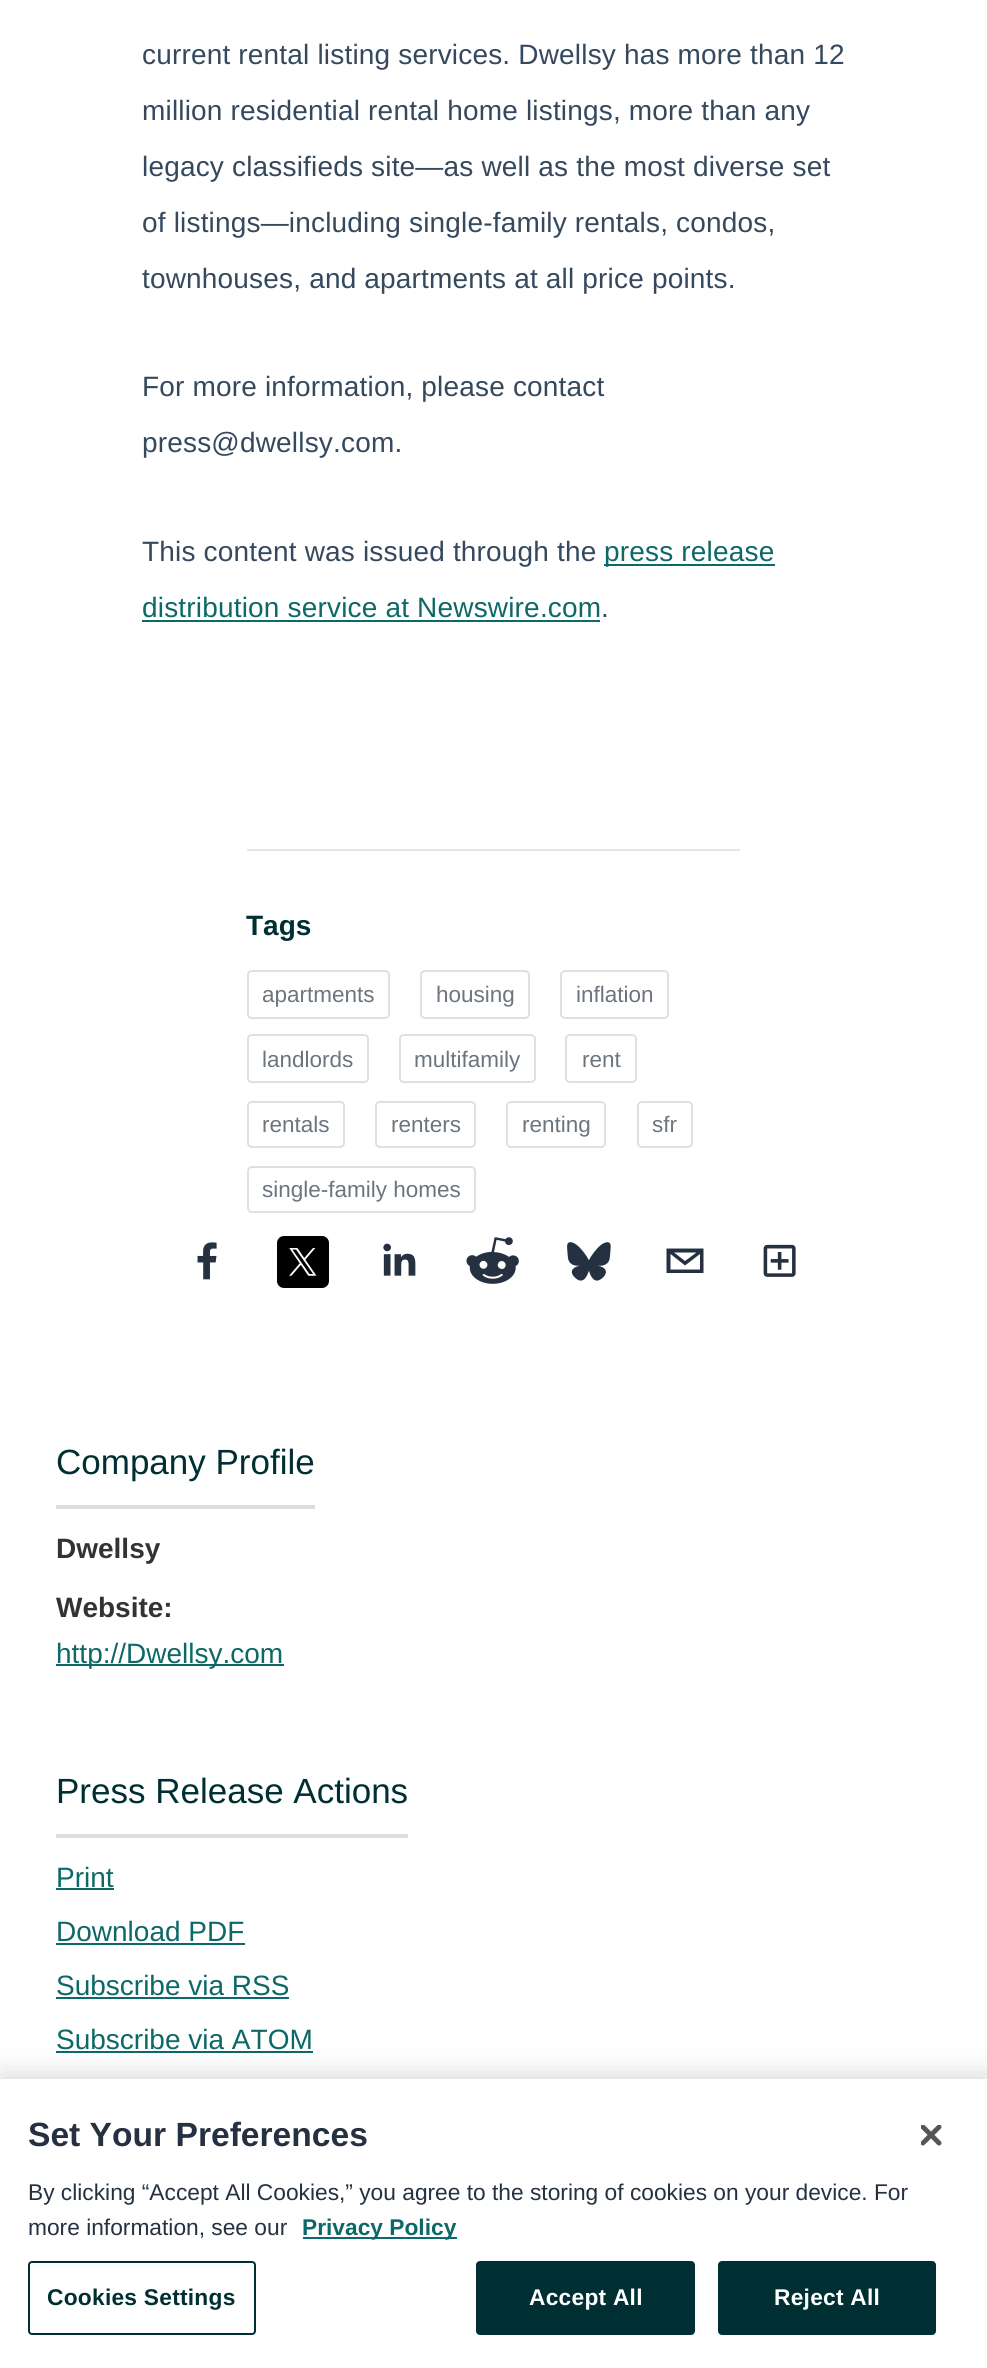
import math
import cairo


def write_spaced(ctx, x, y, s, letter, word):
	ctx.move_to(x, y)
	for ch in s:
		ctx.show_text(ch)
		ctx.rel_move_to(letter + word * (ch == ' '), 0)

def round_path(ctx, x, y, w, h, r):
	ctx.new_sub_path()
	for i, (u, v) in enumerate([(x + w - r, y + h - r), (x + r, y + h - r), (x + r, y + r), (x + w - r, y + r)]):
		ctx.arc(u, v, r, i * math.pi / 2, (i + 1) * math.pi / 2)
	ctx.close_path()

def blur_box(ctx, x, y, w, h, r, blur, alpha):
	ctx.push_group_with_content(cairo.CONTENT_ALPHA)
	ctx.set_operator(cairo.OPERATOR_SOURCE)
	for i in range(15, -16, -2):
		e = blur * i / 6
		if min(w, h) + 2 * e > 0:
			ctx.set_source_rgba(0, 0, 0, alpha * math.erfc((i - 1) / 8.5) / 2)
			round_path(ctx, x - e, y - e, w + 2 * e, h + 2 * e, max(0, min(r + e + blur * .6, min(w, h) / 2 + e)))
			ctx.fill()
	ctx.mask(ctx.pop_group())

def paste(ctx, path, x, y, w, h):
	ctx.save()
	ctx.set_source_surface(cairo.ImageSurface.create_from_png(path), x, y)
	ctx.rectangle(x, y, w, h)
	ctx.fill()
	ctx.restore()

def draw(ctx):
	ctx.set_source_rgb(1, 1, 1)
	ctx.paint()
	ctx.select_font_face('Liberation Sans')
	ctx.set_font_size(28)
	ctx.set_source_rgb(0.208, 0.286, 0.369)
	for x, y, s in [
		(142, 64, 'current rental listing services. Dwellsy has more than 12'),
		(142, 120, 'million residential rental home listings, more than any'),
		(142, 176, 'legacy classifieds site—as well as the most diverse set'),
		(142, 232, 'of listings—including single-family rentals, condos,'),
		(142, 288, 'townhouses, and apartments at all price points.'),
		(142, 396, 'For more information, please contact'),
		(142, 452, 'press@dwellsy.com.'),
		(142, 561, 'This content was issued through the'),
	]:
		write_spaced(ctx, x, y, s, 0.18, 0)
	ctx.set_source_rgb(0.051, 0.408, 0.408)
	ctx.rectangle(604, 564, 171, 2)
	ctx.fill()
	write_spaced(ctx, 604, 561, 'press release', 0.18, 0)
	write_spaced(ctx, 142, 617, 'distribution service at Newswire.com', 0.18, 0)
	ctx.rectangle(142, 620, 458, 2)
	ctx.fill()
	ctx.set_source_rgb(0.208, 0.286, 0.369)
	write_spaced(ctx, 601, 617, '.', 0.18, 0)
	ctx.set_source_rgb(0.902, 0.902, 0.902)
	ctx.rectangle(247, 849, 493, 2)
	ctx.fill()
	ctx.select_font_face('Liberation Sans', cairo.FONT_SLANT_NORMAL, cairo.FONT_WEIGHT_BOLD)
	ctx.set_source_rgb(0, 0.184, 0.2)
	ctx.move_to(246, 935)
	ctx.show_text('Tags')
	round_path(ctx, 248, 971, 141, 47, 4)
	ctx.set_source_rgb(0.875, 0.878, 0.875)
	ctx.stroke()
	ctx.select_font_face('Liberation Sans')
	ctx.set_font_size(22.5)
	ctx.set_source_rgb(0.424, 0.459, 0.49)
	ctx.move_to(262, 1002)
	ctx.show_text('apartments')
	round_path(ctx, 421, 971, 108, 47, 4)
	ctx.set_source_rgb(0.875, 0.878, 0.875)
	ctx.stroke()
	ctx.set_source_rgb(0.424, 0.459, 0.49)
	ctx.move_to(436, 1002)
	ctx.show_text('housing')
	round_path(ctx, 561, 971, 107, 47, 4)
	ctx.set_source_rgb(0.875, 0.878, 0.875)
	ctx.stroke()
	ctx.set_source_rgb(0.424, 0.459, 0.49)
	ctx.move_to(576, 1002)
	ctx.show_text('inflation')
	round_path(ctx, 248, 1035, 120, 47, 4)
	ctx.set_source_rgb(0.875, 0.878, 0.875)
	ctx.stroke()
	ctx.set_source_rgb(0.424, 0.459, 0.49)
	ctx.move_to(262, 1067)
	ctx.show_text('landlords')
	round_path(ctx, 400, 1035, 135, 47, 4)
	ctx.set_source_rgb(0.875, 0.878, 0.875)
	ctx.stroke()
	ctx.set_source_rgb(0.424, 0.459, 0.49)
	ctx.move_to(414, 1067)
	ctx.show_text('multifamily')
	round_path(ctx, 566, 1035, 70, 47, 4)
	ctx.set_source_rgb(0.875, 0.878, 0.875)
	ctx.stroke()
	ctx.set_source_rgb(0.424, 0.459, 0.49)
	ctx.move_to(582, 1067)
	ctx.show_text('rent')
	round_path(ctx, 248, 1102, 96, 45, 4)
	ctx.set_source_rgb(0.875, 0.878, 0.875)
	ctx.stroke()
	ctx.set_source_rgb(0.424, 0.459, 0.49)
	ctx.move_to(262, 1132)
	ctx.show_text('rentals')
	round_path(ctx, 376, 1102, 99, 45, 4)
	ctx.set_source_rgb(0.875, 0.878, 0.875)
	ctx.stroke()
	ctx.set_source_rgb(0.424, 0.459, 0.49)
	ctx.move_to(391, 1132)
	ctx.show_text('renters')
	round_path(ctx, 507, 1102, 98, 45, 4)
	ctx.set_source_rgb(0.875, 0.878, 0.875)
	ctx.stroke()
	ctx.set_source_rgb(0.424, 0.459, 0.49)
	ctx.move_to(522, 1132)
	ctx.show_text('renting')
	round_path(ctx, 638, 1102, 54, 45, 4)
	ctx.set_source_rgb(0.875, 0.878, 0.875)
	ctx.stroke()
	ctx.set_source_rgb(0.424, 0.459, 0.49)
	ctx.move_to(652, 1132)
	ctx.show_text('sfr')
	round_path(ctx, 248, 1167, 227, 45, 4)
	ctx.set_source_rgb(0.875, 0.878, 0.875)
	ctx.stroke()
	ctx.set_source_rgb(0.424, 0.459, 0.49)
	ctx.move_to(262, 1197)
	ctx.show_text('single-family homes')
	paste(ctx, 'media/1.png', 197, 1242, 20, 38)
	ctx.set_source_rgb(0, 0, 0)
	round_path(ctx, 277, 1236, 52, 52, 7)
	ctx.fill()
	paste(ctx, 'media/2.png', 289, 1248, 28, 28)
	paste(ctx, 'media/3.png', 383, 1243, 33, 33)
	paste(ctx, 'media/4.png', 466, 1237, 53, 47)
	paste(ctx, 'media/5.png', 567, 1242, 44, 39)
	ctx.set_source_rgb(0.145, 0.192, 0.251)
	ctx.new_path()
	ctx.move_to(666.5, 1248.5)
	ctx.line_to(666.5, 1273)
	ctx.line_to(703.5, 1273)
	ctx.line_to(703.5, 1248.5)
	ctx.close_path()
	ctx.move_to(696.5, 1252.5)
	ctx.line_to(685, 1261)
	ctx.line_to(674, 1252.5)
	ctx.close_path()
	ctx.move_to(670.5, 1269.5)
	ctx.line_to(670.5, 1254)
	ctx.line_to(685, 1265.5)
	ctx.line_to(700, 1254)
	ctx.line_to(700, 1269.5)
	ctx.close_path()
	ctx.fill()
	paste(ctx, 'media/6.png', 763, 1244, 33, 33)
	ctx.set_source_rgb(0.867, 0.867, 0.867)
	ctx.rectangle(56, 1505, 259, 4)
	ctx.fill()
	ctx.set_font_size(35)
	ctx.set_source_rgb(0, 0.184, 0.2)
	ctx.move_to(56, 1474)
	ctx.show_text('Company Profile')
	ctx.select_font_face('Liberation Sans', cairo.FONT_SLANT_NORMAL, cairo.FONT_WEIGHT_BOLD)
	ctx.set_font_size(28)
	ctx.set_source_rgb(0.2, 0.2, 0.2)
	ctx.move_to(56, 1558)
	ctx.show_text('Dwellsy')
	ctx.move_to(56, 1617)
	ctx.show_text('Website:')
	ctx.set_source_rgb(0.051, 0.408, 0.408)
	ctx.rectangle(56, 1664, 228, 2)
	ctx.fill()
	ctx.select_font_face('Liberation Sans')
	ctx.move_to(56, 1663)
	ctx.show_text('http://Dwellsy.com')
	ctx.set_source_rgb(0.867, 0.867, 0.867)
	ctx.rectangle(56, 1834, 352, 4)
	ctx.fill()
	ctx.set_font_size(35)
	ctx.set_source_rgb(0, 0.184, 0.2)
	ctx.move_to(56, 1803)
	ctx.show_text('Press Release Actions')
	ctx.set_font_size(28)
	ctx.set_source_rgb(0.051, 0.408, 0.408)
	ctx.move_to(56, 1887)
	ctx.show_text('Print')
	ctx.rectangle(56, 1888, 58, 2)
	ctx.fill()
	ctx.move_to(56, 1941)
	ctx.show_text('Download PDF')
	ctx.rectangle(56, 1943, 189, 2)
	ctx.fill()
	ctx.move_to(56, 1995)
	ctx.show_text('Subscribe via RSS')
	ctx.rectangle(56, 1997, 233, 2)
	ctx.fill()
	ctx.move_to(56, 2049)
	ctx.show_text('Subscribe via ATOM')
	ctx.rectangle(56, 2051, 257, 2)
	ctx.fill()
	ctx.set_source_rgb(0, 0, 0)
	blur_box(ctx, 0, 2079, 987, 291, 0, 16, 0.2)
	ctx.set_source_rgb(1, 1, 1)
	ctx.rectangle(0, 2079, 987, 289)
	ctx.fill()
	ctx.select_font_face('Liberation Sans', cairo.FONT_SLANT_NORMAL, cairo.FONT_WEIGHT_BOLD)
	ctx.set_font_size(33.6)
	ctx.set_source_rgb(0.145, 0.192, 0.251)
	ctx.move_to(28, 2146)
	ctx.show_text('Set Your Preferences')
	ctx.select_font_face('Liberation Sans')
	ctx.set_font_size(22.75)
	ctx.move_to(28, 2200)
	ctx.show_text('By clicking “Accept All Cookies,” you agree to the storing of cookies on your device. For')
	ctx.move_to(28, 2235)
	ctx.show_text('more information, see our')
	ctx.set_source_rgb(0.051, 0.408, 0.408)
	ctx.rectangle(303, 2237, 154, 2)
	ctx.fill()
	ctx.select_font_face('Liberation Sans', cairo.FONT_SLANT_NORMAL, cairo.FONT_WEIGHT_BOLD)
	ctx.move_to(302, 2235)
	ctx.show_text('Privacy Policy')
	round_path(ctx, 29, 2262, 226, 72, 3)
	ctx.set_source_rgb(0, 0.184, 0.2)
	ctx.stroke()
	write_spaced(ctx, 47, 2305, 'Cookies Settings', 0.25, 0)
	round_path(ctx, 477, 2262, 217, 72, 3)
	ctx.fill_preserve()
	ctx.stroke()
	ctx.set_source_rgb(1, 1, 1)
	write_spaced(ctx, 529, 2305, 'Accept All', 0.25, 0)
	ctx.set_source_rgb(0, 0.184, 0.2)
	round_path(ctx, 719, 2262, 216, 72, 3)
	ctx.fill_preserve()
	ctx.stroke()
	ctx.set_source_rgb(1, 1, 1)
	write_spaced(ctx, 774, 2305, 'Reject All', 0.25, 0)
	paste(ctx, 'media/7.png', 921, 2125, 21, 21)


surface = cairo.ImageSurface(cairo.FORMAT_RGB24, 987, 2368)
ctx = cairo.Context(surface)
options = cairo.FontOptions()
options.set_hint_metrics(cairo.HINT_METRICS_OFF)
options.set_hint_style(cairo.HINT_STYLE_NONE)
ctx.set_font_options(options)
ctx.set_miter_limit(4)
draw(ctx)
surface.write_to_png('image.png')
